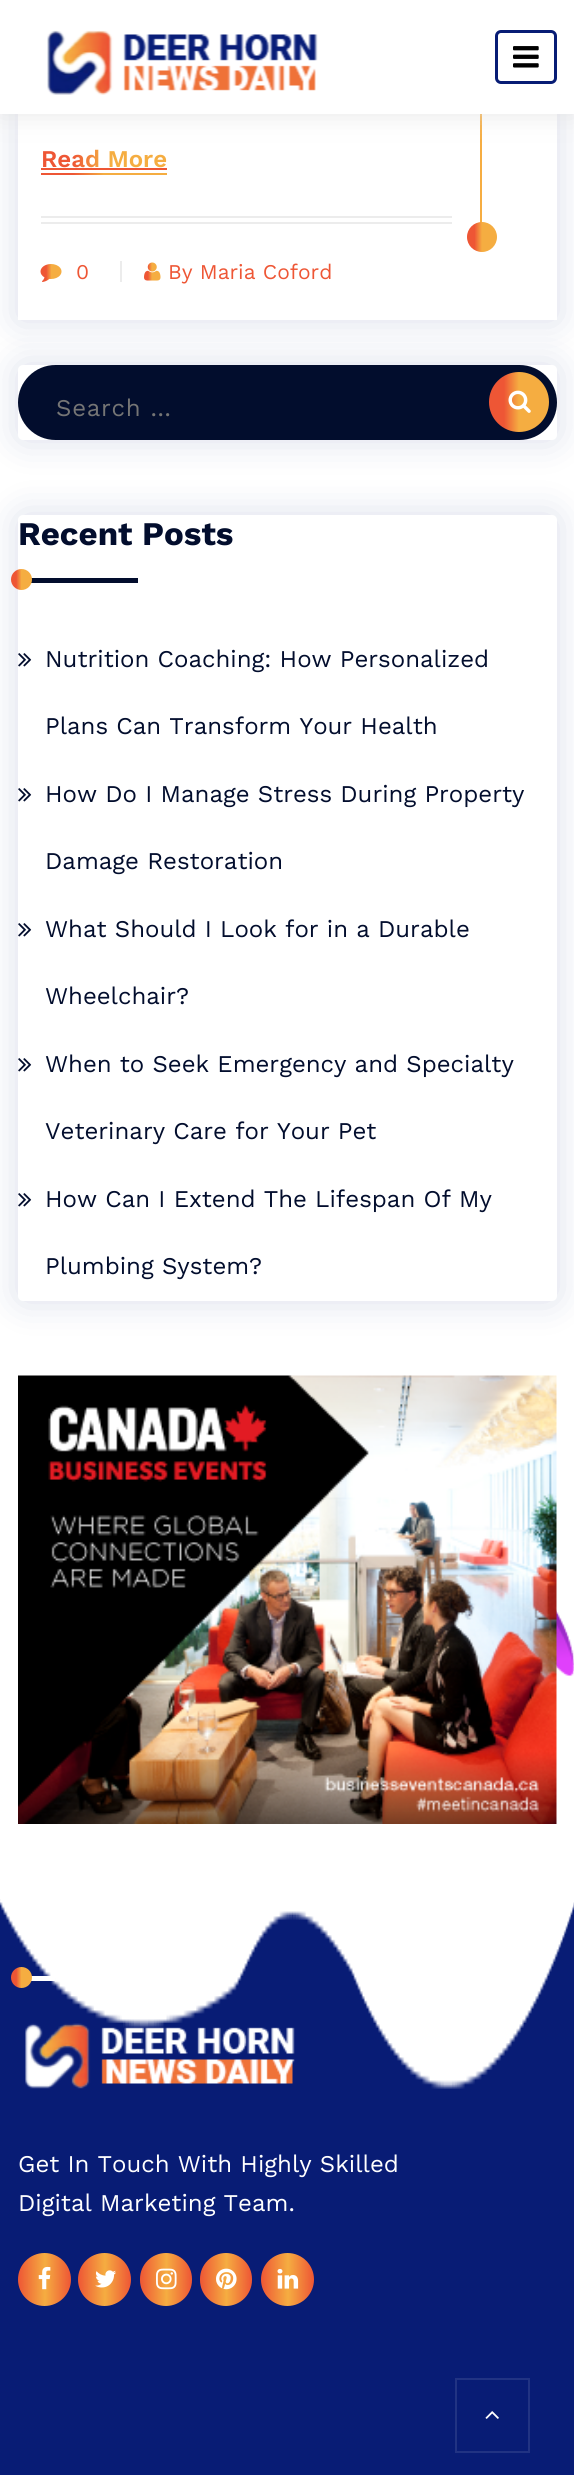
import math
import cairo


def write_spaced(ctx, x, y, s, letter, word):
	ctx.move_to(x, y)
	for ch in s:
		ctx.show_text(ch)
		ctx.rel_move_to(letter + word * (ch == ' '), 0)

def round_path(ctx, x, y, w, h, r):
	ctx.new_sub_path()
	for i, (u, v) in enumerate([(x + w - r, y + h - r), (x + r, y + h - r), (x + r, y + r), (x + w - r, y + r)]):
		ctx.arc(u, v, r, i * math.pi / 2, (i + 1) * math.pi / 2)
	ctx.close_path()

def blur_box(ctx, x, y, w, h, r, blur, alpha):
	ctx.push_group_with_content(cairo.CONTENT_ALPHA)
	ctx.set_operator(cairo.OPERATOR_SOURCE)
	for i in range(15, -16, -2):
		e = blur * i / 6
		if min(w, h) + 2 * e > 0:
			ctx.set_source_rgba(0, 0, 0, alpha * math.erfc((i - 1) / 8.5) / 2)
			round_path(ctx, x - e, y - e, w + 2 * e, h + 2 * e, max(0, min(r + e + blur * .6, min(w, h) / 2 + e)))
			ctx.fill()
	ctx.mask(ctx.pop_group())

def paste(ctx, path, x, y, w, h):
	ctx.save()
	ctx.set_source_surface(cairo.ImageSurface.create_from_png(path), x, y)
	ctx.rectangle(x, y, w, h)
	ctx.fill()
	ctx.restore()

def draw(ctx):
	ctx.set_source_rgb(1, 1, 1)
	ctx.paint()
	ctx.set_source_rgb(0.035, 0.114, 0.463)
	blur_box(ctx, 18, 365, 539, 75, 5, 19, 0.15)
	ctx.set_source_rgb(1, 1, 1)
	round_path(ctx, 18, 365, 539, 75, 5)
	ctx.fill()
	ctx.set_source_rgb(0.035, 0.114, 0.463)
	blur_box(ctx, 18, -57, 539, 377, 0, 19, 0.15)
	ctx.set_source_rgb(1, 1, 1)
	ctx.rectangle(18, 114, 539, 206)
	ctx.fill()
	ctx.set_source_rgb(0.961, 0.678, 0.255)
	ctx.rectangle(480, 114, 2, 109)
	ctx.fill()
	ctx.set_source_rgb(0.871, 0.871, 0.871)
	blur_box(ctx, 0, 0, 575, 114, 0, 13.5, 0.75)
	ctx.set_source_rgb(1, 1, 1)
	ctx.rectangle(0, 0, 574, 114)
	ctx.fill()
	paste(ctx, 'media/1.png', 47, 30, 271, 65)
	round_path(ctx, 496.5, 31.5, 59, 51, 4.5)
	ctx.set_source_rgb(0.031, 0.11, 0.459)
	ctx.set_line_width(3)
	ctx.stroke()
	paste(ctx, 'media/2.png', 513, 46, 26, 22)
	ctx.select_font_face('Work Sans SemiBold')
	ctx.set_font_size(24)
	gradient = cairo.LinearGradient(41, 147, 167, 147)
	gradient.add_color_stop_rgba(0, 0.933, 0.337, 0.208, 1)
	gradient.add_color_stop_rgba(0.25, 0.933, 0.337, 0.208, 1)
	gradient.add_color_stop_rgba(0.5, 0.961, 0.678, 0.255, 1)
	gradient.add_color_stop_rgba(1, 0.961, 0.678, 0.255, 1)
	ctx.set_source(gradient)
	ctx.move_to(41, 167)
	ctx.show_text('Read More')
	ctx.set_source_rgb(0.933, 0.337, 0.208)
	ctx.rectangle(41, 168, 126, 2)
	ctx.fill()
	gradient = cairo.LinearGradient(41, 173, 167, 173)
	gradient.add_color_stop_rgba(0, 0.933, 0.337, 0.208, 1)
	gradient.add_color_stop_rgba(0.25, 0.933, 0.337, 0.208, 1)
	gradient.add_color_stop_rgba(0.5, 0.961, 0.678, 0.255, 1)
	gradient.add_color_stop_rgba(1, 0.961, 0.678, 0.255, 1)
	ctx.set_source(gradient)
	ctx.rectangle(41, 173, 126, 2)
	ctx.fill()
	ctx.set_source_rgb(0.922, 0.922, 0.922)
	ctx.rectangle(41, 216, 411, 2)
	ctx.fill()
	ctx.rectangle(41, 222, 411, 2)
	ctx.fill()
	gradient = cairo.LinearGradient(467, 237, 497, 237)
	gradient.add_color_stop_rgba(0, 0.933, 0.337, 0.208, 1)
	gradient.add_color_stop_rgba(0.25, 0.933, 0.337, 0.208, 1)
	gradient.add_color_stop_rgba(0.5, 0.961, 0.678, 0.255, 1)
	gradient.add_color_stop_rgba(1, 0.961, 0.678, 0.255, 1)
	ctx.set_source(gradient)
	ctx.arc(482, 237, 15, 0, 2 * math.pi)
	ctx.fill()
	paste(ctx, 'media/3.png', 40, 264, 22, 18)
	ctx.select_font_face('Work Sans')
	ctx.set_font_size(21)
	ctx.set_source_rgb(0.933, 0.337, 0.208)
	ctx.move_to(76, 279)
	ctx.show_text('0')
	ctx.set_source_rgb(0.922, 0.922, 0.922)
	ctx.rectangle(120, 261, 2, 21)
	ctx.fill()
	paste(ctx, 'media/4.png', 144, 262, 17, 19)
	ctx.set_source_rgb(0.933, 0.337, 0.208)
	ctx.move_to(168, 279)
	ctx.show_text('By Maria Coford')
	ctx.set_source_rgb(0.008, 0.051, 0.176)
	round_path(ctx, 18, 365, 539, 75, 37.5)
	ctx.fill()
	ctx.set_font_size(24)
	ctx.set_source_rgb(0.459, 0.459, 0.459)
	write_spaced(ctx, 56, 416, 'Search …', 0.75, 0)
	gradient = cairo.LinearGradient(489, 402, 549, 402)
	gradient.add_color_stop_rgba(0, 0.933, 0.337, 0.208, 1)
	gradient.add_color_stop_rgba(0.25, 0.933, 0.337, 0.208, 1)
	gradient.add_color_stop_rgba(0.5, 0.961, 0.678, 0.255, 1)
	gradient.add_color_stop_rgba(1, 0.961, 0.678, 0.255, 1)
	ctx.set_source(gradient)
	ctx.new_path()
	ctx.arc(519, 402, 30, 0, 2 * math.pi)
	ctx.fill()
	paste(ctx, 'media/5.png', 508, 390, 23, 23)
	ctx.set_source_rgb(0.035, 0.114, 0.463)
	blur_box(ctx, 18, 515, 539, 786, 5, 19, 0.15)
	ctx.set_source_rgb(1, 1, 1)
	round_path(ctx, 18, 515, 539, 786, 5)
	ctx.fill()
	ctx.select_font_face('Work Sans', cairo.FONT_SLANT_NORMAL, cairo.FONT_WEIGHT_BOLD)
	ctx.set_font_size(33)
	ctx.set_source_rgb(0.008, 0.051, 0.176)
	ctx.move_to(18, 545)
	ctx.show_text('Recent Posts')
	ctx.rectangle(31, 578, 107, 5)
	ctx.fill()
	gradient = cairo.LinearGradient(11, 579, 32, 579)
	gradient.add_color_stop_rgba(0, 0.933, 0.337, 0.208, 1)
	gradient.add_color_stop_rgba(0.25, 0.933, 0.337, 0.208, 1)
	gradient.add_color_stop_rgba(0.5, 0.961, 0.678, 0.255, 1)
	gradient.add_color_stop_rgba(1, 0.961, 0.678, 0.255, 1)
	ctx.set_source(gradient)
	ctx.arc(21.5, 579.5, 10.5, 0, 2 * math.pi)
	ctx.fill()
	paste(ctx, 'media/6.png', 18, 653, 14, 14)
	ctx.select_font_face('Work Sans')
	ctx.set_font_size(24)
	ctx.set_source_rgb(0.008, 0.051, 0.176)
	ctx.move_to(45, 667)
	ctx.show_text('Nutrition Coaching: How Personalized')
	ctx.move_to(45, 734)
	ctx.show_text('Plans Can Transform Your Health')
	paste(ctx, 'media/6.png', 18, 788, 14, 14)
	ctx.move_to(45, 802)
	ctx.show_text('How Do I Manage Stress During Property')
	ctx.move_to(45, 869)
	ctx.show_text('Damage Restoration')
	paste(ctx, 'media/6.png', 18, 923, 14, 14)
	ctx.move_to(45, 937)
	ctx.show_text('What Should I Look for in a Durable')
	ctx.move_to(45, 1004)
	ctx.show_text('Wheelchair?')
	paste(ctx, 'media/6.png', 18, 1058, 14, 14)
	ctx.move_to(45, 1072)
	ctx.show_text('When to Seek Emergency and Specialty')
	ctx.move_to(45, 1139)
	ctx.show_text('Veterinary Care for Your Pet')
	paste(ctx, 'media/6.png', 18, 1193, 14, 14)
	ctx.move_to(45, 1207)
	ctx.show_text('How Can I Extend The Lifespan Of My')
	ctx.move_to(45, 1274)
	ctx.show_text('Plumbing System?')
	paste(ctx, 'media/8.png', 556, 1609, 18, 68)
	paste(ctx, 'media/7.png', 18, 1375, 539, 449)
	paste(ctx, 'media/9.png', 0, 1899, 574, 576)
	ctx.set_source_rgb(1, 1, 1)
	ctx.rectangle(31, 1976, 24, 5)
	ctx.fill()
	gradient = cairo.LinearGradient(11, 1977, 32, 1977)
	gradient.add_color_stop_rgba(0, 0.933, 0.337, 0.208, 1)
	gradient.add_color_stop_rgba(0.25, 0.933, 0.337, 0.208, 1)
	gradient.add_color_stop_rgba(0.5, 0.961, 0.678, 0.255, 1)
	gradient.add_color_stop_rgba(1, 0.961, 0.678, 0.255, 1)
	ctx.set_source(gradient)
	ctx.arc(21.5, 1977.5, 10.5, 0, 2 * math.pi)
	ctx.fill()
	paste(ctx, 'media/10.png', 25, 2023, 270, 66)
	ctx.set_source_rgb(1, 1, 1)
	ctx.move_to(18, 2172)
	ctx.show_text('Get In Touch With Highly Skilled')
	ctx.move_to(18, 2211)
	ctx.show_text('Digital Marketing Team.')
	gradient = cairo.LinearGradient(18, 2279, 71, 2279)
	gradient.add_color_stop_rgba(0, 0.933, 0.337, 0.208, 1)
	gradient.add_color_stop_rgba(0.51, 0.961, 0.678, 0.255, 1)
	gradient.add_color_stop_rgba(1, 0.933, 0.337, 0.208, 1)
	ctx.set_source(gradient)
	ctx.new_path()
	ctx.arc(44.5, 2279.5, 26.5, 0, 2 * math.pi)
	ctx.fill()
	paste(ctx, 'media/11.png', 38, 2266, 13, 24)
	gradient = cairo.LinearGradient(78, 2279, 131, 2279)
	gradient.add_color_stop_rgba(0, 0.933, 0.337, 0.208, 1)
	gradient.add_color_stop_rgba(0.51, 0.961, 0.678, 0.255, 1)
	gradient.add_color_stop_rgba(1, 0.933, 0.337, 0.208, 1)
	ctx.set_source(gradient)
	ctx.arc(104.5, 2279.5, 26.5, 0, 2 * math.pi)
	ctx.fill()
	paste(ctx, 'media/12.png', 95, 2270, 21, 18)
	gradient = cairo.LinearGradient(140, 2279, 192, 2279)
	gradient.add_color_stop_rgba(0, 0.933, 0.337, 0.208, 1)
	gradient.add_color_stop_rgba(0.51, 0.961, 0.678, 0.255, 1)
	gradient.add_color_stop_rgba(1, 0.933, 0.337, 0.208, 1)
	ctx.set_source(gradient)
	round_path(ctx, 140, 2253, 52, 53, 26)
	ctx.fill()
	paste(ctx, 'media/13.png', 156, 2268, 21, 22)
	gradient = cairo.LinearGradient(200, 2279, 252, 2279)
	gradient.add_color_stop_rgba(0, 0.933, 0.337, 0.208, 1)
	gradient.add_color_stop_rgba(0.51, 0.961, 0.678, 0.255, 1)
	gradient.add_color_stop_rgba(1, 0.933, 0.337, 0.208, 1)
	ctx.set_source(gradient)
	round_path(ctx, 200, 2253, 52, 53, 26)
	ctx.fill()
	paste(ctx, 'media/14.png', 216, 2268, 21, 22)
	gradient = cairo.LinearGradient(261, 2279, 314, 2279)
	gradient.add_color_stop_rgba(0, 0.933, 0.337, 0.208, 1)
	gradient.add_color_stop_rgba(0.51, 0.961, 0.678, 0.255, 1)
	gradient.add_color_stop_rgba(1, 0.933, 0.337, 0.208, 1)
	ctx.set_source(gradient)
	ctx.arc(287.5, 2279.5, 26.5, 0, 2 * math.pi)
	ctx.fill()
	paste(ctx, 'media/15.png', 277, 2268, 22, 21)
	ctx.rectangle(456, 2379, 73, 73)
	ctx.set_source_rgb(0.129, 0.2, 0.514)
	ctx.set_line_width(2)
	ctx.stroke()
	paste(ctx, 'media/16.png', 485, 2411, 14, 8)


surface = cairo.ImageSurface(cairo.FORMAT_RGB24, 574, 2475)
ctx = cairo.Context(surface)
options = cairo.FontOptions()
options.set_hint_metrics(cairo.HINT_METRICS_OFF)
options.set_hint_style(cairo.HINT_STYLE_NONE)
ctx.set_font_options(options)
ctx.set_miter_limit(4)
draw(ctx)
surface.write_to_png('image.png')
